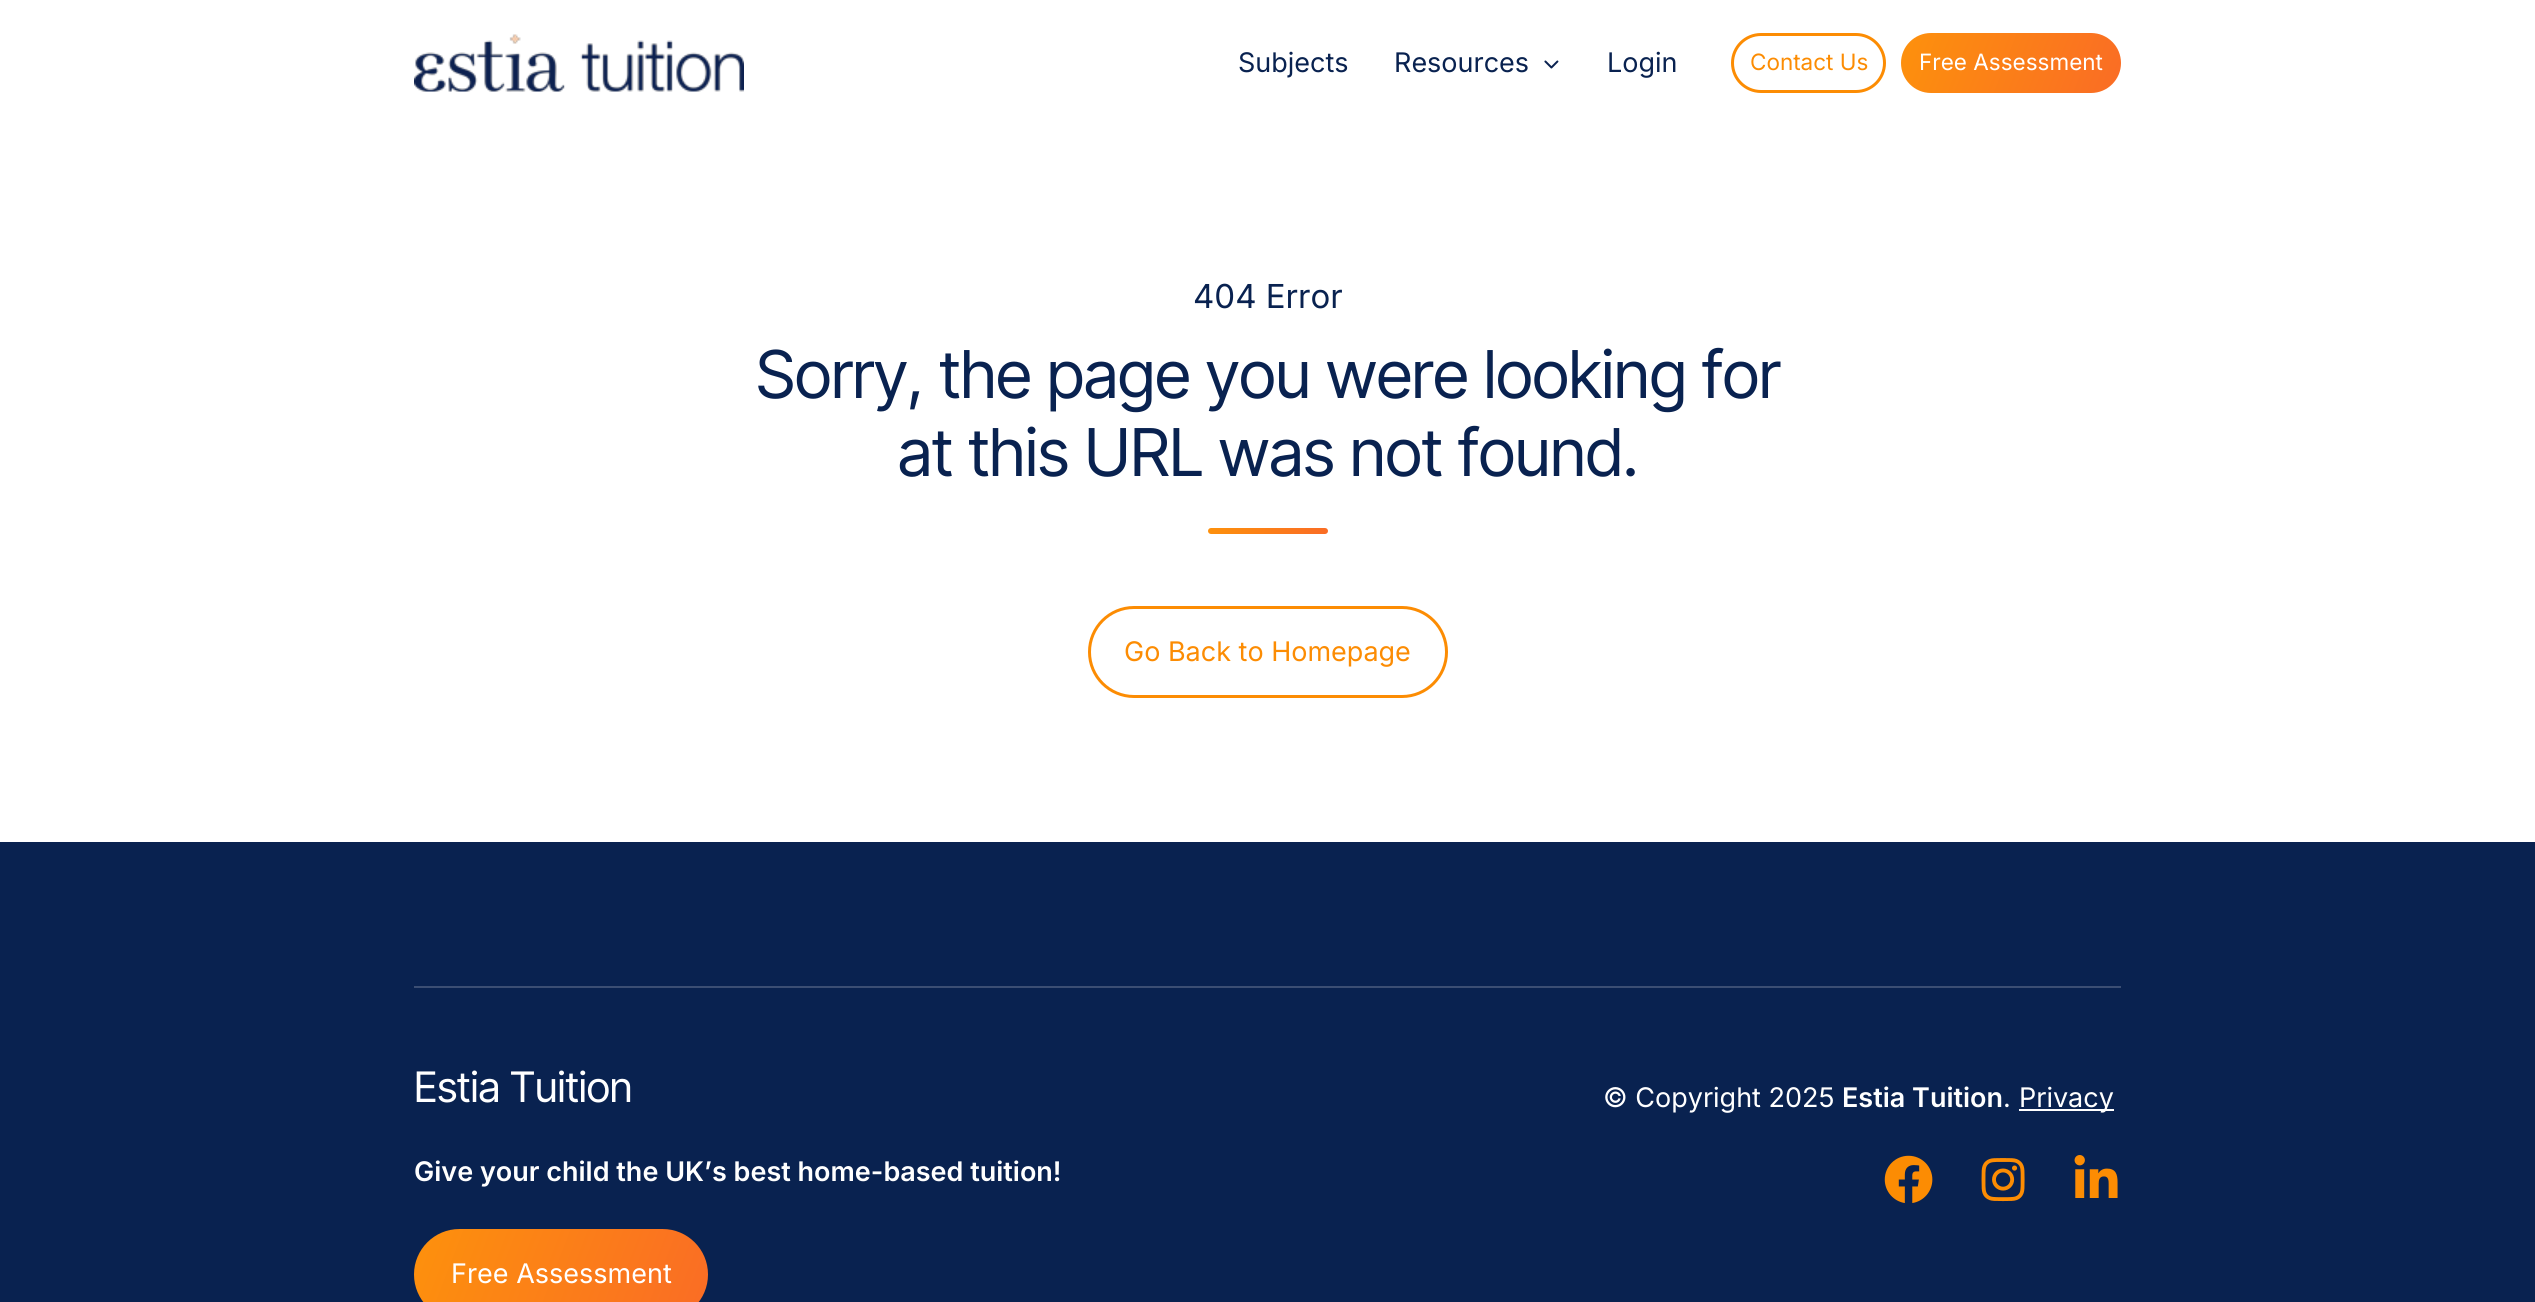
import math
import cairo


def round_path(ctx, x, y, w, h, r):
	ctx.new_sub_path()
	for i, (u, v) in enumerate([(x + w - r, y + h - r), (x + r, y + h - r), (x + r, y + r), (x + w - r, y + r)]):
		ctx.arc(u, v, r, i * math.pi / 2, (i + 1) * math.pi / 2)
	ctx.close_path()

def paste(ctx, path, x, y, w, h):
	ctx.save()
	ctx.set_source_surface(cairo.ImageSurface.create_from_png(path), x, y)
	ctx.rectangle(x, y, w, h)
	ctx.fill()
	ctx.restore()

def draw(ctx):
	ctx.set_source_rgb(1, 1, 1)
	ctx.paint()
	paste(ctx, 'media/1.png', 414, 34, 330, 58)
	ctx.select_font_face('Inter')
	ctx.set_font_size(27)
	ctx.set_source_rgb(0.039, 0.133, 0.314)
	ctx.move_to(1238, 72)
	ctx.show_text('Subjects')
	paste(ctx, 'media/2.png', 1544, 60, 15, 9)
	ctx.move_to(1394, 72)
	ctx.show_text('Resources')
	ctx.move_to(1607, 72)
	ctx.show_text('Login')
	round_path(ctx, 1732.5, 34.5, 152, 57, 28.5)
	ctx.set_source_rgb(0.988, 0.549, 0.012)
	ctx.set_line_width(3)
	ctx.stroke()
	ctx.set_font_size(22.5)
	ctx.move_to(1750, 70)
	ctx.show_text('Contact Us')
	gradient = cairo.LinearGradient(1905, 22, 2117, 104)
	gradient.add_color_stop_rgba(0, 0.992, 0.569, 0.047, 1)
	gradient.add_color_stop_rgba(1, 0.98, 0.424, 0.145, 1)
	ctx.set_source(gradient)
	round_path(ctx, 1901, 33, 220, 60, 30)
	ctx.fill()
	ctx.set_source_rgb(1, 1, 1)
	ctx.move_to(1919, 70)
	ctx.show_text('Free Assessment')
	ctx.set_font_size(33)
	ctx.set_source_rgb(0.039, 0.133, 0.314)
	ctx.move_to(1193, 308)
	ctx.show_text('404 Error')
	ctx.select_font_face('Inter Tight')
	ctx.set_font_size(65.9)
	ctx.move_to(756, 398)
	ctx.show_text('Sorry, the page you were looking for')
	ctx.move_to(898, 476)
	ctx.show_text('at this URL was not found.')
	gradient = cairo.LinearGradient(1214, 511, 1321, 551)
	gradient.add_color_stop_rgba(0, 0.992, 0.569, 0.047, 1)
	gradient.add_color_stop_rgba(1, 0.98, 0.424, 0.145, 1)
	ctx.set_source(gradient)
	round_path(ctx, 1208, 528, 120, 6, 3)
	ctx.fill()
	round_path(ctx, 1089.5, 607.5, 357, 89, 44.5)
	ctx.set_source_rgb(0.988, 0.549, 0.012)
	ctx.stroke()
	ctx.select_font_face('Inter')
	ctx.set_font_size(27)
	ctx.move_to(1124, 661)
	ctx.show_text('Go Back to Homepage')
	ctx.set_source_rgb(0.039, 0.133, 0.314)
	ctx.rectangle(0, 842, 2535, 460)
	ctx.fill()
	ctx.set_source_rgb(0.231, 0.306, 0.451)
	ctx.rectangle(414, 986, 1707, 2)
	ctx.fill()
	ctx.select_font_face('Inter Tight')
	ctx.set_font_size(42)
	ctx.set_source_rgb(1, 1, 1)
	ctx.move_to(414, 1102)
	ctx.show_text('Estia Tuition')
	ctx.select_font_face('Inter SemiBold')
	ctx.set_font_size(27)
	ctx.move_to(414, 1181)
	ctx.show_text('Give your child the UK’s best home-based tuition!')
	gradient = cairo.LinearGradient(418, 1219, 704, 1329)
	gradient.add_color_stop_rgba(0, 0.992, 0.569, 0.047, 1)
	gradient.add_color_stop_rgba(1, 0.98, 0.424, 0.145, 1)
	ctx.set_source(gradient)
	round_path(ctx, 414, 1229, 294, 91, 45.5)
	ctx.fill()
	ctx.select_font_face('Inter')
	ctx.set_source_rgb(1, 1, 1)
	ctx.move_to(451, 1283)
	ctx.show_text('Free Assessment')
	ctx.move_to(1603, 1107)
	ctx.show_text('© Copyright 2025')
	ctx.select_font_face('Inter SemiBold')
	ctx.move_to(1842, 1107)
	ctx.show_text('Estia Tuition')
	ctx.select_font_face('Inter')
	ctx.move_to(2003, 1107)
	ctx.show_text('.')
	ctx.rectangle(2019, 1109, 95, 2)
	ctx.fill()
	ctx.move_to(2019, 1107)
	ctx.show_text('Privacy')
	paste(ctx, 'media/3.png', 1884, 1155, 49, 48)
	paste(ctx, 'media/4.png', 1981, 1158, 44, 44)
	paste(ctx, 'media/5.png', 2074, 1155, 44, 43)


surface = cairo.ImageSurface(cairo.FORMAT_RGB24, 2535, 1302)
ctx = cairo.Context(surface)
options = cairo.FontOptions()
options.set_hint_metrics(cairo.HINT_METRICS_OFF)
options.set_hint_style(cairo.HINT_STYLE_NONE)
ctx.set_font_options(options)
ctx.set_miter_limit(4)
draw(ctx)
surface.write_to_png('image.png')
